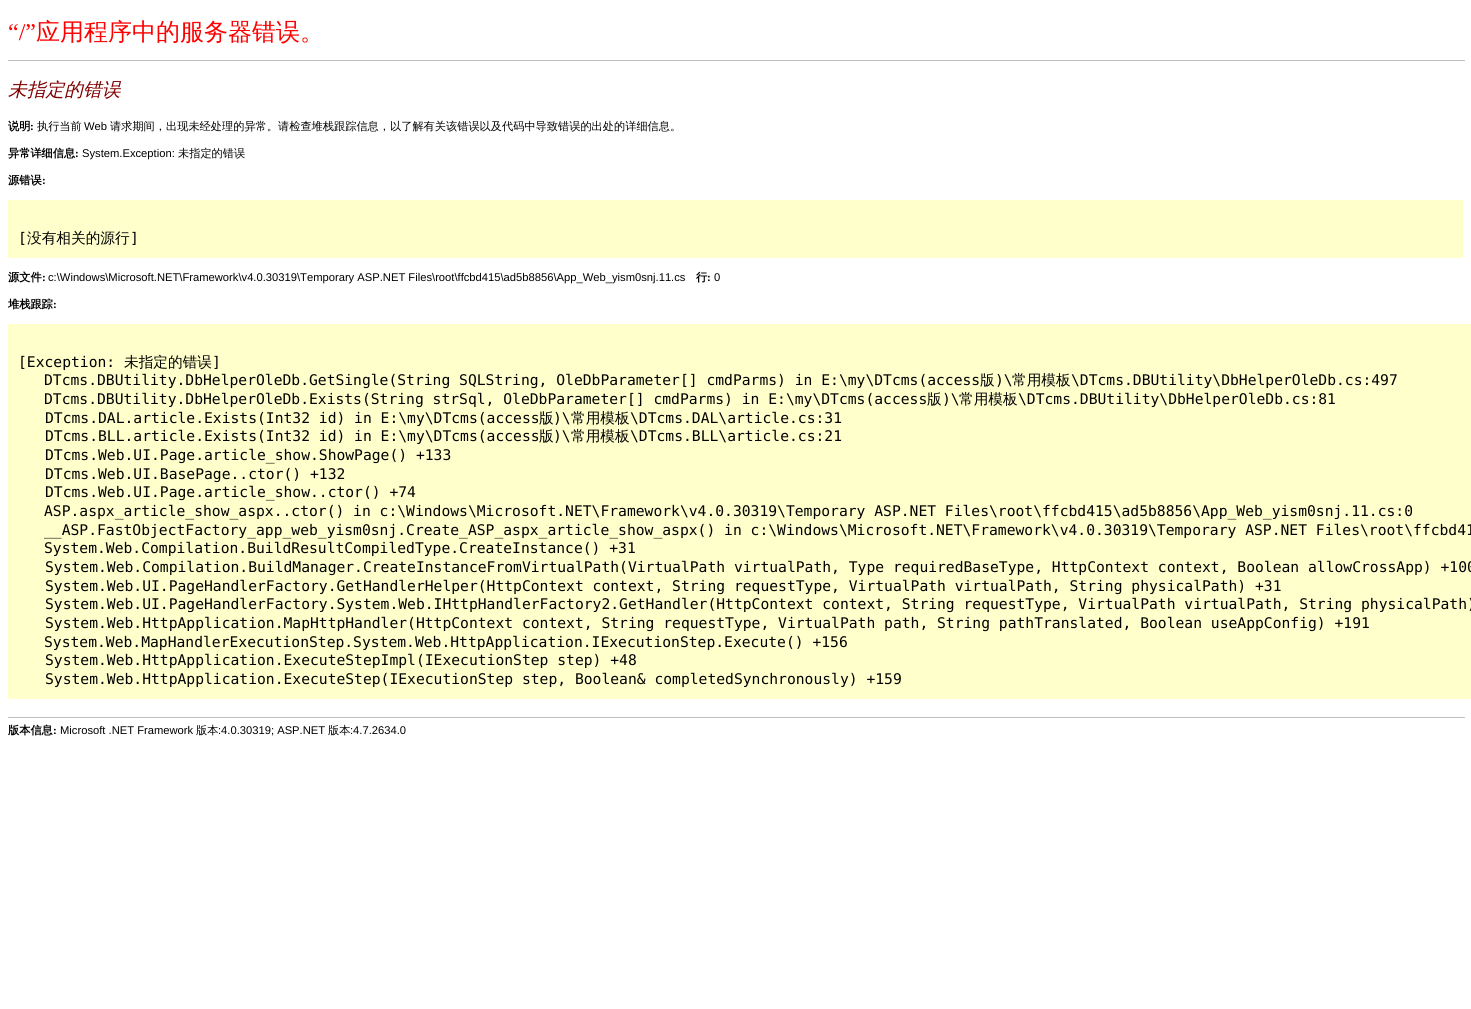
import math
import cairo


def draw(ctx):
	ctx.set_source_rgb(1, 1, 1)
	ctx.paint()
	ctx.select_font_face('Liberation Serif')
	ctx.set_font_size(24)
	ctx.set_source_rgb(1, 0, 0)
	ctx.move_to(8, 40)
	ctx.show_text('“/”')
	ctx.select_font_face('WenQuanYi Zen Hei Medium')
	ctx.move_to(36, 40)
	ctx.show_text('应用程序中的服务器错误。')
	ctx.set_source_rgb(0.753, 0.753, 0.753)
	ctx.rectangle(8, 60, 1457, 1)
	ctx.fill()
	ctx.select_font_face('WenQuanYi Zen Hei Medium', cairo.FONT_SLANT_ITALIC)
	ctx.set_font_size(18.75)
	ctx.set_source_rgb(0.502, 0, 0)
	ctx.move_to(8, 96)
	ctx.show_text('未指定的错误')
	ctx.select_font_face('WenQuanYi Zen Hei', cairo.FONT_SLANT_NORMAL, cairo.FONT_WEIGHT_BOLD)
	ctx.set_font_size(11.2)
	ctx.set_source_rgb(0, 0, 0)
	ctx.move_to(8, 130)
	ctx.show_text('说明')
	ctx.select_font_face('Liberation Serif', cairo.FONT_SLANT_NORMAL, cairo.FONT_WEIGHT_BOLD)
	ctx.move_to(30, 130)
	ctx.show_text(':')
	ctx.select_font_face('WenQuanYi Zen Hei Medium')
	ctx.move_to(37, 130)
	ctx.show_text('执行当前')
	ctx.select_font_face('Liberation Sans')
	ctx.move_to(84, 130)
	ctx.show_text('Web')
	ctx.select_font_face('WenQuanYi Zen Hei Medium')
	ctx.move_to(110, 130)
	ctx.show_text('请求期间，出现未经处理的异常。请检查堆栈跟踪信息，以了解有关该错误以及代码中导致错误的出处的详细信息。')
	ctx.select_font_face('WenQuanYi Zen Hei', cairo.FONT_SLANT_NORMAL, cairo.FONT_WEIGHT_BOLD)
	ctx.move_to(8, 157)
	ctx.show_text('异常详细信息')
	ctx.select_font_face('Liberation Serif', cairo.FONT_SLANT_NORMAL, cairo.FONT_WEIGHT_BOLD)
	ctx.move_to(75, 157)
	ctx.show_text(':')
	ctx.select_font_face('Liberation Sans')
	ctx.move_to(82, 157)
	ctx.show_text('System.Exception:')
	ctx.select_font_face('WenQuanYi Zen Hei Medium')
	ctx.move_to(178, 157)
	ctx.show_text('未指定的错误')
	ctx.select_font_face('WenQuanYi Zen Hei', cairo.FONT_SLANT_NORMAL, cairo.FONT_WEIGHT_BOLD)
	ctx.move_to(8, 184)
	ctx.show_text('源错误')
	ctx.select_font_face('Liberation Serif', cairo.FONT_SLANT_NORMAL, cairo.FONT_WEIGHT_BOLD)
	ctx.move_to(42, 184)
	ctx.show_text(':')
	ctx.set_source_rgb(1, 1, 0.8)
	ctx.rectangle(8, 200, 1455, 58)
	ctx.fill()
	ctx.select_font_face('DejaVu Sans Mono')
	ctx.set_font_size(14.67)
	ctx.set_source_rgb(0, 0, 0)
	ctx.move_to(18, 243)
	ctx.show_text('[')
	ctx.select_font_face('WenQuanYi Zen Hei Medium')
	ctx.move_to(27, 243)
	ctx.show_text('没有相关的源行')
	ctx.select_font_face('DejaVu Sans Mono')
	ctx.move_to(130, 243)
	ctx.show_text(']')
	ctx.select_font_face('WenQuanYi Zen Hei', cairo.FONT_SLANT_NORMAL, cairo.FONT_WEIGHT_BOLD)
	ctx.set_font_size(11.2)
	ctx.move_to(8, 281)
	ctx.show_text('源文件')
	ctx.select_font_face('Liberation Serif', cairo.FONT_SLANT_NORMAL, cairo.FONT_WEIGHT_BOLD)
	ctx.move_to(42, 281)
	ctx.show_text(':')
	ctx.select_font_face('Liberation Sans')
	ctx.move_to(48, 281)
	ctx.show_text('c:\\Windows\\Microsoft.NET\\Framework\\v4.0.30319\\Temporary ASP.NET Files\\root\\ffcbd415\\ad5b8856\\App_Web_yism0snj.11.cs')
	ctx.select_font_face('WenQuanYi Zen Hei', cairo.FONT_SLANT_NORMAL, cairo.FONT_WEIGHT_BOLD)
	ctx.move_to(696, 281)
	ctx.show_text('行')
	ctx.select_font_face('Liberation Serif', cairo.FONT_SLANT_NORMAL, cairo.FONT_WEIGHT_BOLD)
	ctx.move_to(707, 281)
	ctx.show_text(':')
	ctx.select_font_face('Liberation Sans')
	ctx.move_to(714, 281)
	ctx.show_text('0')
	ctx.select_font_face('WenQuanYi Zen Hei', cairo.FONT_SLANT_NORMAL, cairo.FONT_WEIGHT_BOLD)
	ctx.move_to(8, 308)
	ctx.show_text('堆栈跟踪')
	ctx.select_font_face('Liberation Serif', cairo.FONT_SLANT_NORMAL, cairo.FONT_WEIGHT_BOLD)
	ctx.move_to(53, 308)
	ctx.show_text(':')
	ctx.set_source_rgb(1, 1, 0.8)
	ctx.rectangle(8, 324, 1463, 375)
	ctx.fill()
	ctx.select_font_face('DejaVu Sans Mono')
	ctx.set_font_size(14.67)
	ctx.set_source_rgb(0, 0, 0)
	ctx.move_to(18, 367)
	ctx.show_text('[Exception:')
	ctx.select_font_face('WenQuanYi Zen Hei Medium')
	ctx.move_to(124, 367)
	ctx.show_text('未指定的错误')
	ctx.select_font_face('DejaVu Sans Mono')
	ctx.move_to(212, 367)
	ctx.show_text(']')
	ctx.move_to(44, 385)
	ctx.show_text('DTcms.DBUtility.DbHelperOleDb.GetSingle(String SQLString, OleDbParameter[] cmdParms) in E:\\my\\DTcms(access')
	ctx.select_font_face('WenQuanYi Zen Hei Medium')
	ctx.move_to(980, 385)
	ctx.show_text('版')
	ctx.select_font_face('DejaVu Sans Mono')
	ctx.move_to(995, 385)
	ctx.show_text(')\\')
	ctx.select_font_face('WenQuanYi Zen Hei Medium')
	ctx.move_to(1012, 385)
	ctx.show_text('常用模板')
	ctx.select_font_face('DejaVu Sans Mono')
	ctx.move_to(1071, 385)
	ctx.show_text('\\DTcms.DBUtility\\DbHelperOleDb.cs:497')
	ctx.move_to(44, 404)
	ctx.show_text('DTcms.DBUtility.DbHelperOleDb.Exists(String strSql, OleDbParameter[] cmdParms) in E:\\my\\DTcms(access')
	ctx.select_font_face('WenQuanYi Zen Hei Medium')
	ctx.move_to(927, 404)
	ctx.show_text('版')
	ctx.select_font_face('DejaVu Sans Mono')
	ctx.move_to(942, 404)
	ctx.show_text(')\\')
	ctx.select_font_face('WenQuanYi Zen Hei Medium')
	ctx.move_to(959, 404)
	ctx.show_text('常用模板')
	ctx.select_font_face('DejaVu Sans Mono')
	ctx.move_to(1018, 404)
	ctx.show_text('\\DTcms.DBUtility\\DbHelperOleDb.cs:81')
	ctx.move_to(45, 423)
	ctx.show_text('DTcms.DAL.article.Exists(Int32 id) in E:\\my\\DTcms(access')
	ctx.select_font_face('WenQuanYi Zen Hei Medium')
	ctx.move_to(539, 423)
	ctx.show_text('版')
	ctx.select_font_face('DejaVu Sans Mono')
	ctx.move_to(553, 423)
	ctx.show_text(')\\')
	ctx.select_font_face('WenQuanYi Zen Hei Medium')
	ctx.move_to(571, 423)
	ctx.show_text('常用模板')
	ctx.select_font_face('DejaVu Sans Mono')
	ctx.move_to(630, 423)
	ctx.show_text('\\DTcms.DAL\\article.cs:31')
	ctx.move_to(45, 441)
	ctx.show_text('DTcms.BLL.article.Exists(Int32 id) in E:\\my\\DTcms(access')
	ctx.select_font_face('WenQuanYi Zen Hei Medium')
	ctx.move_to(539, 441)
	ctx.show_text('版')
	ctx.select_font_face('DejaVu Sans Mono')
	ctx.move_to(553, 441)
	ctx.show_text(')\\')
	ctx.select_font_face('WenQuanYi Zen Hei Medium')
	ctx.move_to(571, 441)
	ctx.show_text('常用模板')
	ctx.select_font_face('DejaVu Sans Mono')
	for x, y, s in [
		(630, 441, '\\DTcms.BLL\\article.cs:21'),
		(45, 460, 'DTcms.Web.UI.Page.article_show.ShowPage() +133'),
		(45, 479, 'DTcms.Web.UI.BasePage..ctor() +132'),
		(45, 497, 'DTcms.Web.UI.Page.article_show..ctor() +74'),
		(44, 516, 'ASP.aspx_article_show_aspx..ctor() in c:\\Windows\\Microsoft.NET\\Framework\\v4.0.30319\\Temporary ASP.NET Files\\root\\ffcbd415\\ad5b8856\\App_Web_yism0snj.11.cs:0'),
		(44, 535, '__ASP.FastObjectFactory_app_web_yism0snj.Create_ASP_aspx_article_show_aspx() in c:\\Windows\\Microsoft.NET\\Framework\\v4.0.30319\\Temporary ASP.NET Files\\root\\ffcbd41'),
		(44, 553, 'System.Web.Compilation.BuildResultCompiledType.CreateInstance() +31'),
		(45, 572, 'System.Web.Compilation.BuildManager.CreateInstanceFromVirtualPath(VirtualPath virtualPath, Type requiredBaseType, HttpContext context, Boolean allowCrossApp) +100'),
		(45, 591, 'System.Web.UI.PageHandlerFactory.GetHandlerHelper(HttpContext context, String requestType, VirtualPath virtualPath, String physicalPath) +31'),
		(45, 609, 'System.Web.UI.PageHandlerFactory.System.Web.IHttpHandlerFactory2.GetHandler(HttpContext context, String requestType, VirtualPath virtualPath, String physicalPath)'),
		(45, 628, 'System.Web.HttpApplication.MapHttpHandler(HttpContext context, String requestType, VirtualPath path, String pathTranslated, Boolean useAppConfig) +191'),
		(44, 647, 'System.Web.MapHandlerExecutionStep.System.Web.HttpApplication.IExecutionStep.Execute() +156'),
		(45, 665, 'System.Web.HttpApplication.ExecuteStepImpl(IExecutionStep step) +48'),
		(45, 684, 'System.Web.HttpApplication.ExecuteStep(IExecutionStep step, Boolean& completedSynchronously) +159'),
	]:
		ctx.move_to(x, y)
		ctx.show_text(s)
	ctx.set_source_rgb(0.753, 0.753, 0.753)
	ctx.rectangle(8, 717, 1457, 1)
	ctx.fill()
	ctx.select_font_face('WenQuanYi Zen Hei', cairo.FONT_SLANT_NORMAL, cairo.FONT_WEIGHT_BOLD)
	ctx.set_font_size(11.2)
	ctx.set_source_rgb(0, 0, 0)
	ctx.move_to(8, 734)
	ctx.show_text('版本信息')
	ctx.select_font_face('Liberation Serif', cairo.FONT_SLANT_NORMAL, cairo.FONT_WEIGHT_BOLD)
	ctx.move_to(53, 734)
	ctx.show_text(':')
	ctx.select_font_face('Liberation Sans')
	ctx.move_to(60, 734)
	ctx.show_text('Microsoft .NET Framework')
	ctx.select_font_face('WenQuanYi Zen Hei Medium')
	ctx.move_to(196, 734)
	ctx.show_text('版本')
	ctx.select_font_face('Liberation Sans')
	ctx.move_to(218, 734)
	ctx.show_text(':4.0.30319; ASP.NET')
	ctx.select_font_face('WenQuanYi Zen Hei Medium')
	ctx.move_to(328, 734)
	ctx.show_text('版本')
	ctx.select_font_face('Liberation Sans')
	ctx.move_to(350, 734)
	ctx.show_text(':4.7.2634.0')


surface = cairo.ImageSurface(cairo.FORMAT_RGB24, 1471, 1009)
ctx = cairo.Context(surface)
options = cairo.FontOptions()
options.set_hint_metrics(cairo.HINT_METRICS_OFF)
options.set_hint_style(cairo.HINT_STYLE_NONE)
ctx.set_font_options(options)
ctx.set_miter_limit(4)
draw(ctx)
surface.write_to_png('image.png')
